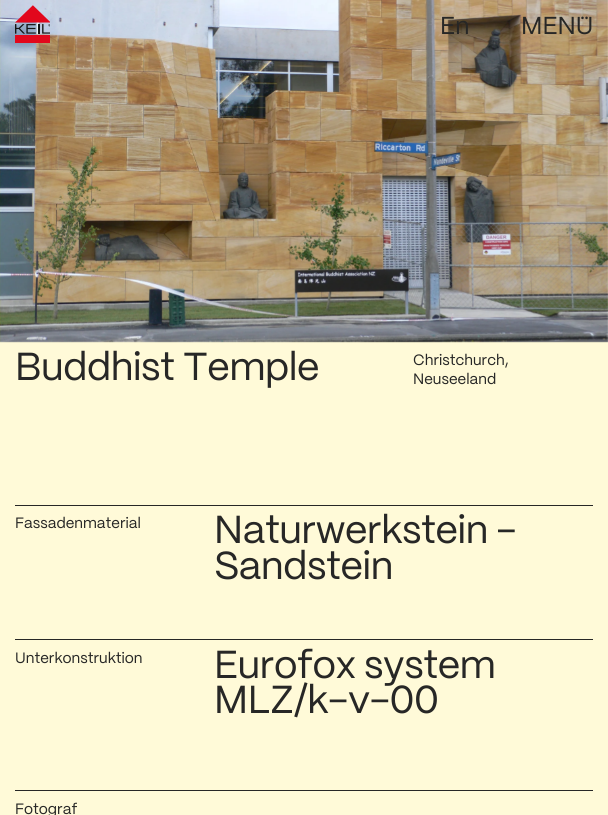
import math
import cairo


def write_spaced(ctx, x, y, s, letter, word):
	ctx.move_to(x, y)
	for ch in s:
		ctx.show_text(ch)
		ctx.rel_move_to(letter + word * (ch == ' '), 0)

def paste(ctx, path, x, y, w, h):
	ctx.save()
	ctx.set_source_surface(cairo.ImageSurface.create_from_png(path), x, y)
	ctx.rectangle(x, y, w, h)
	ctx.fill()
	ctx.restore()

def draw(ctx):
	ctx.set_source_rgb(1, 0.98, 0.847)
	ctx.paint()
	paste(ctx, 'media/2.png', 0, 0, 608, 343)
	paste(ctx, 'media/1.png', 15, 5, 35, 38)
	ctx.select_font_face('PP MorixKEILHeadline')
	ctx.set_font_size(24.5)
	ctx.set_source_rgb(0.153, 0.153, 0.149)
	ctx.move_to(440, 34)
	ctx.show_text('En')
	ctx.move_to(521, 34)
	ctx.show_text('MENÜ')
	ctx.set_font_size(39)
	write_spaced(ctx, 15, 380, 'Buddhist Temple', -0.4, 0)
	ctx.select_font_face('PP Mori')
	ctx.set_font_size(15)
	ctx.move_to(413, 365)
	ctx.show_text('Christchurch,')
	ctx.move_to(413, 384)
	ctx.show_text('Neuseeland')
	ctx.rectangle(15, 505, 578, 1)
	ctx.fill()
	ctx.move_to(15, 528)
	ctx.show_text('Fassadenmaterial')
	ctx.set_font_size(39)
	write_spaced(ctx, 214, 543, 'Naturwerkstein -', -0.4, 0)
	write_spaced(ctx, 214, 579, 'Sandstein', -0.4, 0)
	ctx.rectangle(15, 639, 578, 1)
	ctx.fill()
	ctx.set_font_size(15)
	ctx.move_to(15, 663)
	ctx.show_text('Unterkonstruktion')
	ctx.set_font_size(39)
	write_spaced(ctx, 214, 678, 'Eurofox system', -0.4, 0)
	write_spaced(ctx, 214, 713, 'MLZ/k-v-00', -0.4, 0)
	ctx.rectangle(15, 790, 578, 1)
	ctx.fill()
	ctx.set_font_size(15)
	ctx.move_to(15, 814)
	ctx.show_text('Fotograf')


surface = cairo.ImageSurface(cairo.FORMAT_RGB24, 608, 815)
ctx = cairo.Context(surface)
options = cairo.FontOptions()
options.set_hint_metrics(cairo.HINT_METRICS_OFF)
options.set_hint_style(cairo.HINT_STYLE_NONE)
ctx.set_font_options(options)
ctx.set_miter_limit(4)
draw(ctx)
surface.write_to_png('image.png')
